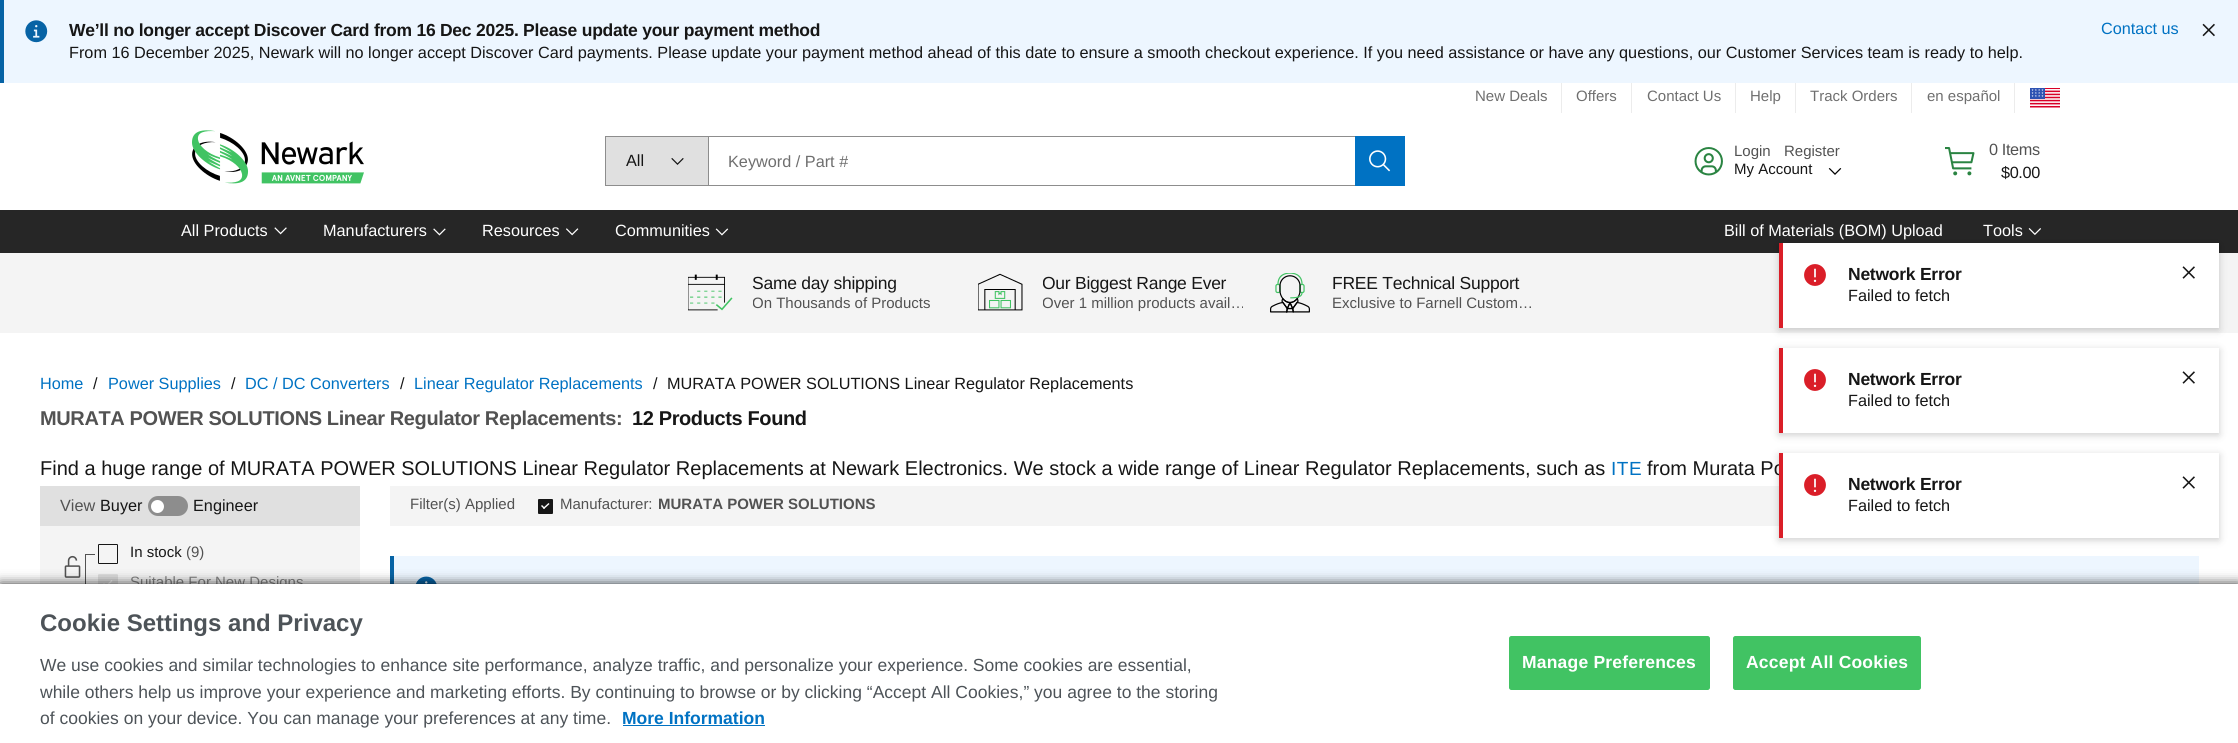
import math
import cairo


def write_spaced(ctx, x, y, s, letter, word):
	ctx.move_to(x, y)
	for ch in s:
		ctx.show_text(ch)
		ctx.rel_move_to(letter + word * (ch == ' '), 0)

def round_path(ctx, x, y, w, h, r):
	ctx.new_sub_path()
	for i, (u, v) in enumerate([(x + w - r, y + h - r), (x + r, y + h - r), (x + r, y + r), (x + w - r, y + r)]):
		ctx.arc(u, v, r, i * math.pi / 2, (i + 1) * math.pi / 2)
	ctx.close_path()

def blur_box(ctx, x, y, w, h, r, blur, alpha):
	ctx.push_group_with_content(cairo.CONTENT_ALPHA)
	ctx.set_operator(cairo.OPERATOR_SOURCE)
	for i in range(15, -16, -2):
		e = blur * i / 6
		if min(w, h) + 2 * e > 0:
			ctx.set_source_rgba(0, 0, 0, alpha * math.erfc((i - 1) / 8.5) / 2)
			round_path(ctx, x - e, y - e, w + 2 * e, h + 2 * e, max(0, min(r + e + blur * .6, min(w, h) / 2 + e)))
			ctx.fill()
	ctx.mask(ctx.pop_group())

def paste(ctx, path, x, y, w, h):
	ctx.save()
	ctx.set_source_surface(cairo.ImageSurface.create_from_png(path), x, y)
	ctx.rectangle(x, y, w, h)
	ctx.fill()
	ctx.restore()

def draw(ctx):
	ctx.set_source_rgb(1, 1, 1)
	ctx.paint()
	ctx.set_source_rgb(0.929, 0.961, 1)
	ctx.rectangle(4, 0, 2234, 83)
	ctx.fill()
	ctx.set_source_rgb(0.027, 0.388, 0.647)
	ctx.rectangle(0, 0, 4, 83)
	ctx.fill()
	paste(ctx, 'media/1.png', 25, 20, 23, 23)
	ctx.select_font_face('Liberation Sans', cairo.FONT_SLANT_NORMAL, cairo.FONT_WEIGHT_BOLD)
	ctx.set_font_size(17.5)
	ctx.set_source_rgb(0.086, 0.086, 0.086)
	write_spaced(ctx, 69, 36, 'We’ll no longer accept Discover Card from 16 Dec 2025. Please update your payment method', -0.25, 0)
	ctx.select_font_face('Liberation Sans')
	ctx.set_font_size(16.26)
	ctx.move_to(69, 58)
	ctx.show_text('From 16 December 2025, Newark will no longer accept Discover Card payments. Please update your payment method ahead of this date to ensure a smooth checkout experience. If you need assistance or have any questions, our Customer Services team is ready to help.')
	ctx.set_source_rgb(0, 0.447, 0.765)
	ctx.move_to(2101, 34)
	ctx.show_text('Contact us')
	paste(ctx, 'media/2.png', 2202, 23, 13, 14)
	ctx.set_source_rgb(0.922, 0.922, 0.922)
	ctx.rectangle(1561, 83, 1, 30)
	ctx.fill()
	ctx.set_font_size(15)
	ctx.set_source_rgb(0.435, 0.435, 0.435)
	ctx.move_to(1475, 101)
	ctx.show_text('New Deals')
	ctx.set_source_rgb(0.922, 0.922, 0.922)
	ctx.rectangle(1631, 83, 1, 30)
	ctx.fill()
	ctx.set_source_rgb(0.435, 0.435, 0.435)
	ctx.move_to(1576, 101)
	ctx.show_text('Offers')
	ctx.set_source_rgb(0.922, 0.922, 0.922)
	ctx.rectangle(1735, 83, 1, 30)
	ctx.fill()
	ctx.set_source_rgb(0.435, 0.435, 0.435)
	ctx.move_to(1647, 101)
	ctx.show_text('Contact Us')
	ctx.set_source_rgb(0.922, 0.922, 0.922)
	ctx.rectangle(1795, 83, 1, 30)
	ctx.fill()
	ctx.set_source_rgb(0.435, 0.435, 0.435)
	ctx.move_to(1750, 101)
	ctx.show_text('Help')
	ctx.set_source_rgb(0.922, 0.922, 0.922)
	ctx.rectangle(1911, 83, 1, 30)
	ctx.fill()
	ctx.set_source_rgb(0.435, 0.435, 0.435)
	ctx.move_to(1810, 101)
	ctx.show_text('Track Orders')
	ctx.set_source_rgb(0.922, 0.922, 0.922)
	ctx.rectangle(2014, 83, 1, 30)
	ctx.fill()
	ctx.set_source_rgb(0.435, 0.435, 0.435)
	ctx.move_to(1927, 101)
	ctx.show_text('en español')
	paste(ctx, 'media/3.png', 2030, 88, 30, 20)
	paste(ctx, 'media/4.png', 192, 130, 172, 54)
	ctx.set_source_rgb(0.878, 0.878, 0.878)
	ctx.rectangle(606, 137, 102, 48)
	ctx.fill()
	ctx.set_source_rgb(0.553, 0.553, 0.553)
	ctx.rectangle(605, 136, 750, 1)
	ctx.rectangle(605, 185, 750, 1)
	ctx.rectangle(605, 136, 1, 50)
	ctx.fill()
	ctx.set_font_size(16.26)
	ctx.set_source_rgb(0.086, 0.086, 0.086)
	ctx.move_to(626, 166)
	ctx.show_text('All')
	paste(ctx, 'media/5.png', 671, 158, 13, 7)
	ctx.set_source_rgb(0.553, 0.553, 0.553)
	ctx.rectangle(708, 136, 1, 50)
	ctx.fill()
	ctx.set_source_rgb(0.435, 0.435, 0.435)
	ctx.move_to(728, 167)
	ctx.show_text('Keyword / Part #')
	ctx.set_source_rgb(0, 0.447, 0.765)
	ctx.rectangle(1355, 136, 50, 50)
	ctx.fill()
	paste(ctx, 'media/6.png', 1369, 150, 22, 22)
	paste(ctx, 'media/7.png', 1694, 147, 29, 29)
	ctx.set_font_size(15)
	ctx.set_source_rgb(0.322, 0.322, 0.322)
	ctx.move_to(1734, 156)
	ctx.show_text('Login')
	ctx.move_to(1784, 156)
	ctx.show_text('Register')
	ctx.set_source_rgb(0.086, 0.086, 0.086)
	ctx.move_to(1734, 174)
	ctx.show_text('My Account')
	paste(ctx, 'media/8.png', 1828, 168, 14, 7)
	paste(ctx, 'media/9.png', 1945, 147, 30, 29)
	ctx.set_font_size(16.26)
	ctx.set_source_rgb(0.322, 0.322, 0.322)
	write_spaced(ctx, 1989, 155, '0 Items', -0.38, 0)
	ctx.set_source_rgb(0.086, 0.086, 0.086)
	write_spaced(ctx, 2001, 178, '$0.00', -0.38, 0)
	ctx.set_source_rgb(0.149, 0.149, 0.149)
	ctx.rectangle(0, 210, 2238, 43)
	ctx.fill()
	ctx.set_source_rgb(1, 1, 1)
	ctx.move_to(181, 236)
	ctx.show_text('All Products')
	paste(ctx, 'media/10.png', 274, 227, 13, 8)
	ctx.move_to(323, 236)
	ctx.show_text('Manufacturers')
	paste(ctx, 'media/11.png', 433, 228, 13, 8)
	ctx.move_to(482, 236)
	ctx.show_text('Resources')
	paste(ctx, 'media/12.png', 566, 228, 13, 8)
	ctx.move_to(615, 236)
	ctx.show_text('Communities')
	paste(ctx, 'media/13.png', 715, 228, 14, 8)
	ctx.move_to(1724, 236)
	ctx.show_text('Bill of Materials (BOM) Upload')
	ctx.move_to(1983, 236)
	ctx.show_text('Tools')
	paste(ctx, 'media/14.png', 2028, 228, 13, 7)
	ctx.set_source_rgb(0.957, 0.957, 0.957)
	ctx.rectangle(0, 253, 2238, 80)
	ctx.fill()
	paste(ctx, 'media/15.png', 688, 274, 45, 37)
	ctx.set_font_size(17.5)
	ctx.set_source_rgb(0.086, 0.086, 0.086)
	write_spaced(ctx, 752, 289, 'Same day shipping', -0.25, 0)
	ctx.save()
	ctx.rectangle(753, 294, 205, 19)
	ctx.clip()
	ctx.set_font_size(15)
	ctx.set_source_rgb(0.322, 0.322, 0.322)
	ctx.move_to(752, 308)
	ctx.show_text('On Thousands of Products')
	ctx.restore()
	paste(ctx, 'media/16.png', 978, 273, 45, 38)
	ctx.save()
	ctx.rectangle(1043, 273, 205, 21)
	ctx.clip()
	write_spaced(ctx, 1042, 289, 'Our Biggest Range Ever', -0.25, 0)
	ctx.restore()
	ctx.save()
	ctx.rectangle(1043, 294, 205, 19)
	ctx.clip()
	ctx.set_font_size(15)
	ctx.set_source_rgb(0.322, 0.322, 0.322)
	ctx.move_to(1042, 308)
	ctx.show_text('Over 1 million products avail…')
	ctx.restore()
	paste(ctx, 'media/17.png', 1270, 273, 40, 40)
	write_spaced(ctx, 1332, 289, 'FREE Technical Support', -0.25, 0)
	ctx.set_font_size(15)
	ctx.set_source_rgb(0.322, 0.322, 0.322)
	ctx.move_to(1332, 308)
	ctx.show_text('Exclusive to Farnell Custom…')
	ctx.set_font_size(16.26)
	ctx.set_source_rgb(0, 0.447, 0.765)
	ctx.move_to(40, 389)
	ctx.show_text('Home')
	ctx.set_source_rgb(0.086, 0.086, 0.086)
	ctx.move_to(93, 389)
	ctx.show_text('/')
	ctx.set_source_rgb(0, 0.447, 0.765)
	ctx.move_to(108, 389)
	ctx.show_text('Power Supplies')
	ctx.set_source_rgb(0.086, 0.086, 0.086)
	ctx.move_to(231, 389)
	ctx.show_text('/')
	ctx.set_source_rgb(0, 0.447, 0.765)
	ctx.move_to(245, 389)
	ctx.show_text('DC / DC Converters')
	ctx.set_source_rgb(0.086, 0.086, 0.086)
	ctx.move_to(400, 389)
	ctx.show_text('/')
	ctx.set_source_rgb(0, 0.447, 0.765)
	ctx.move_to(414, 389)
	ctx.show_text('Linear Regulator Replacements')
	ctx.set_source_rgb(0.086, 0.086, 0.086)
	ctx.move_to(653, 389)
	ctx.show_text('/')
	ctx.move_to(667, 389)
	ctx.show_text('MURATA POWER SOLUTIONS Linear Regulator Replacements')
	ctx.select_font_face('Liberation Sans', cairo.FONT_SLANT_NORMAL, cairo.FONT_WEIGHT_BOLD)
	ctx.set_font_size(20)
	ctx.set_source_rgb(0.322, 0.322, 0.322)
	write_spaced(ctx, 40, 425, 'MURATA POWER SOLUTIONS Linear Regulator Replacements:', -0.38, 0)
	ctx.set_source_rgb(0.086, 0.086, 0.086)
	write_spaced(ctx, 632, 425, '12 Products Found', -0.38, 0)
	ctx.select_font_face('Liberation Sans')
	ctx.move_to(40, 475)
	ctx.show_text('Find a huge range of MURATA POWER SOLUTIONS Linear Regulator Replacements at Newark Electronics. We stock a wide range of Linear Regulator Replacements, such as')
	ctx.set_font_size(19)
	ctx.set_source_rgb(0, 0.447, 0.765)
	write_spaced(ctx, 1611, 475, 'ITE', 0.5, 0)
	ctx.set_font_size(20)
	ctx.set_source_rgb(0.086, 0.086, 0.086)
	ctx.move_to(1647, 475)
	ctx.show_text('from Murata Po')
	ctx.set_source_rgb(0.957, 0.957, 0.957)
	ctx.rectangle(40, 526, 320, 58)
	ctx.fill()
	ctx.set_source_rgb(0.878, 0.878, 0.878)
	ctx.rectangle(40, 486, 320, 40)
	ctx.fill()
	ctx.set_font_size(16.26)
	ctx.set_source_rgb(0.322, 0.322, 0.322)
	ctx.move_to(60, 511)
	ctx.show_text('View')
	ctx.set_source_rgb(0.086, 0.086, 0.086)
	ctx.move_to(100, 511)
	ctx.show_text('Buyer')
	ctx.set_source_rgb(0.553, 0.553, 0.553)
	round_path(ctx, 148, 496, 40, 20, 10)
	ctx.fill()
	ctx.set_source_rgb(1, 1, 1)
	ctx.arc(157.5, 506.5, 6.5, 0, 2 * math.pi)
	ctx.fill()
	ctx.set_source_rgb(0.086, 0.086, 0.086)
	ctx.move_to(193, 511)
	ctx.show_text('Engineer')
	ctx.set_source_rgb(0.322, 0.322, 0.322)
	ctx.rectangle(85, 554, 1, 30)
	ctx.fill()
	round_path(ctx, 98.5, 544.5, 19, 19, 0.5)
	ctx.set_source_rgb(0.086, 0.086, 0.086)
	ctx.set_line_width(1)
	ctx.stroke()
	ctx.set_font_size(15)
	ctx.move_to(130, 557)
	ctx.show_text('In stock')
	ctx.set_source_rgb(0.322, 0.322, 0.322)
	ctx.move_to(186, 557)
	ctx.show_text('(9)')
	ctx.rectangle(85, 554, 10, 1)
	ctx.fill()
	paste(ctx, 'media/18.png', 64, 555, 17, 23)
	ctx.set_source_rgb(0.867, 0.867, 0.867)
	round_path(ctx, 98.5, 574.5, 19, 19, 0.5)
	ctx.fill_preserve()
	ctx.stroke()
	ctx.set_source_rgb(0.522, 0.522, 0.522)
	ctx.move_to(130, 587)
	ctx.show_text('Suitable For New Designs')
	ctx.set_source_rgb(0.98, 0.98, 0.98)
	ctx.new_path()
	ctx.move_to(105.5, 586)
	ctx.line_to(111.5, 580)
	ctx.line_to(112.5, 581)
	ctx.line_to(106.5, 587)
	ctx.close_path()
	ctx.fill()
	ctx.new_path()
	ctx.move_to(103, 584)
	ctx.line_to(104, 583)
	ctx.line_to(107, 586)
	ctx.line_to(106.5, 587)
	ctx.close_path()
	ctx.fill()
	ctx.set_source_rgb(0.957, 0.957, 0.957)
	ctx.rectangle(390, 486, 1389, 40)
	ctx.fill()
	ctx.set_source_rgb(0.322, 0.322, 0.322)
	ctx.move_to(410, 509)
	ctx.show_text('Filter(s) Applied')
	ctx.set_source_rgb(0.086, 0.086, 0.086)
	round_path(ctx, 538.5, 499.5, 14, 14, 0.5)
	ctx.fill_preserve()
	ctx.stroke()
	ctx.set_source_rgb(0.322, 0.322, 0.322)
	ctx.move_to(560, 509)
	ctx.show_text('Manufacturer:')
	ctx.select_font_face('Liberation Sans', cairo.FONT_SLANT_NORMAL, cairo.FONT_WEIGHT_BOLD)
	ctx.move_to(658, 509)
	ctx.show_text('MURATA POWER SOLUTIONS')
	ctx.set_source_rgb(1, 1, 1)
	ctx.new_path()
	ctx.move_to(543, 508)
	ctx.line_to(548.5, 503)
	ctx.line_to(549.5, 504)
	ctx.line_to(544, 509)
	ctx.close_path()
	ctx.fill()
	ctx.new_path()
	ctx.move_to(541, 506)
	ctx.line_to(542, 505)
	ctx.line_to(545, 508)
	ctx.line_to(544, 509)
	ctx.close_path()
	ctx.fill()
	ctx.set_source_rgb(0.929, 0.961, 1)
	ctx.rectangle(394, 556, 1805, 28)
	ctx.fill()
	ctx.set_source_rgb(0.027, 0.388, 0.647)
	ctx.rectangle(390, 556, 4, 28)
	ctx.fill()
	paste(ctx, 'media/19.png', 416, 576, 21, 8)
	ctx.set_source_rgb(0, 0, 0)
	blur_box(ctx, 1779, 245, 440, 85, 0, 4, 0.2)
	ctx.set_source_rgb(1, 1, 1)
	ctx.rectangle(1783, 243, 436, 85)
	ctx.fill()
	ctx.set_source_rgb(0.855, 0.118, 0.157)
	ctx.rectangle(1779, 243, 4, 85)
	ctx.fill()
	paste(ctx, 'media/20.png', 1804, 264, 22, 22)
	ctx.set_font_size(17.5)
	ctx.set_source_rgb(0.086, 0.086, 0.086)
	write_spaced(ctx, 1848, 280, 'Network Error', -0.25, 0)
	ctx.select_font_face('Liberation Sans')
	ctx.set_font_size(16.26)
	ctx.move_to(1848, 301)
	ctx.show_text('Failed to fetch')
	paste(ctx, 'media/21.png', 2182, 266, 13, 13)
	ctx.set_source_rgb(0, 0, 0)
	blur_box(ctx, 1779, 350, 440, 85, 0, 4, 0.2)
	ctx.set_source_rgb(1, 1, 1)
	ctx.rectangle(1783, 348, 436, 85)
	ctx.fill()
	ctx.set_source_rgb(0.855, 0.118, 0.157)
	ctx.rectangle(1779, 348, 4, 85)
	ctx.fill()
	paste(ctx, 'media/20.png', 1804, 369, 22, 22)
	ctx.select_font_face('Liberation Sans', cairo.FONT_SLANT_NORMAL, cairo.FONT_WEIGHT_BOLD)
	ctx.set_font_size(17.5)
	ctx.set_source_rgb(0.086, 0.086, 0.086)
	write_spaced(ctx, 1848, 385, 'Network Error', -0.25, 0)
	ctx.select_font_face('Liberation Sans')
	ctx.set_font_size(16.26)
	ctx.move_to(1848, 406)
	ctx.show_text('Failed to fetch')
	paste(ctx, 'media/21.png', 2182, 371, 13, 13)
	ctx.set_source_rgb(0, 0, 0)
	blur_box(ctx, 1779, 455, 440, 85, 0, 4, 0.2)
	ctx.set_source_rgb(1, 1, 1)
	ctx.rectangle(1783, 453, 436, 85)
	ctx.fill()
	ctx.set_source_rgb(0.855, 0.118, 0.157)
	ctx.rectangle(1779, 453, 4, 85)
	ctx.fill()
	paste(ctx, 'media/20.png', 1804, 474, 22, 22)
	ctx.select_font_face('Liberation Sans', cairo.FONT_SLANT_NORMAL, cairo.FONT_WEIGHT_BOLD)
	ctx.set_font_size(17.5)
	ctx.set_source_rgb(0.086, 0.086, 0.086)
	write_spaced(ctx, 1848, 490, 'Network Error', -0.25, 0)
	ctx.select_font_face('Liberation Sans')
	ctx.set_font_size(16.26)
	ctx.move_to(1848, 511)
	ctx.show_text('Failed to fetch')
	paste(ctx, 'media/21.png', 2182, 476, 13, 13)
	ctx.set_source_rgb(0, 0, 0)
	blur_box(ctx, 0, 584, 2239, 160, 0, 6, 0.8)
	ctx.set_source_rgb(1, 1, 1)
	ctx.rectangle(0, 584, 2238, 159)
	ctx.fill()
	ctx.select_font_face('Liberation Sans', cairo.FONT_SLANT_NORMAL, cairo.FONT_WEIGHT_BOLD)
	ctx.set_font_size(24)
	ctx.set_source_rgb(0.302, 0.325, 0.345)
	ctx.move_to(40, 631)
	ctx.show_text('Cookie Settings and Privacy')
	ctx.select_font_face('Liberation Sans')
	ctx.set_font_size(17.5)
	for x, y, s in [
		(40, 671, 'We use cookies and similar technologies to enhance site performance, analyze traffic, and personalize your experience. Some cookies are essential,'),
		(40, 698, 'while others help us improve your experience and marketing efforts. By continuing to browse or by clicking “Accept All Cookies,” you agree to the storing'),
		(40, 724, 'of cookies on your device. You can manage your preferences at any time.'),
	]:
		ctx.move_to(x, y)
		ctx.show_text(s)
	ctx.select_font_face('Liberation Sans', cairo.FONT_SLANT_NORMAL, cairo.FONT_WEIGHT_BOLD)
	ctx.set_source_rgb(0, 0.447, 0.765)
	ctx.move_to(622, 724)
	ctx.show_text('More Information')
	ctx.rectangle(623, 725, 142, 1)
	ctx.fill()
	ctx.set_source_rgb(0.255, 0.765, 0.388)
	round_path(ctx, 1509.5, 636.5, 200, 53, 2)
	ctx.fill_preserve()
	ctx.stroke()
	ctx.set_source_rgb(1, 1, 1)
	write_spaced(ctx, 1522, 668, 'Manage Preferences', 0.2, 0)
	ctx.set_source_rgb(0.255, 0.765, 0.388)
	round_path(ctx, 1733.5, 636.5, 187, 53, 2)
	ctx.fill_preserve()
	ctx.stroke()
	ctx.set_source_rgb(1, 1, 1)
	write_spaced(ctx, 1746, 668, 'Accept All Cookies', 0.2, 0)


surface = cairo.ImageSurface(cairo.FORMAT_RGB24, 2238, 743)
ctx = cairo.Context(surface)
options = cairo.FontOptions()
options.set_hint_metrics(cairo.HINT_METRICS_OFF)
options.set_hint_style(cairo.HINT_STYLE_NONE)
ctx.set_font_options(options)
ctx.set_miter_limit(4)
draw(ctx)
surface.write_to_png('image.png')
